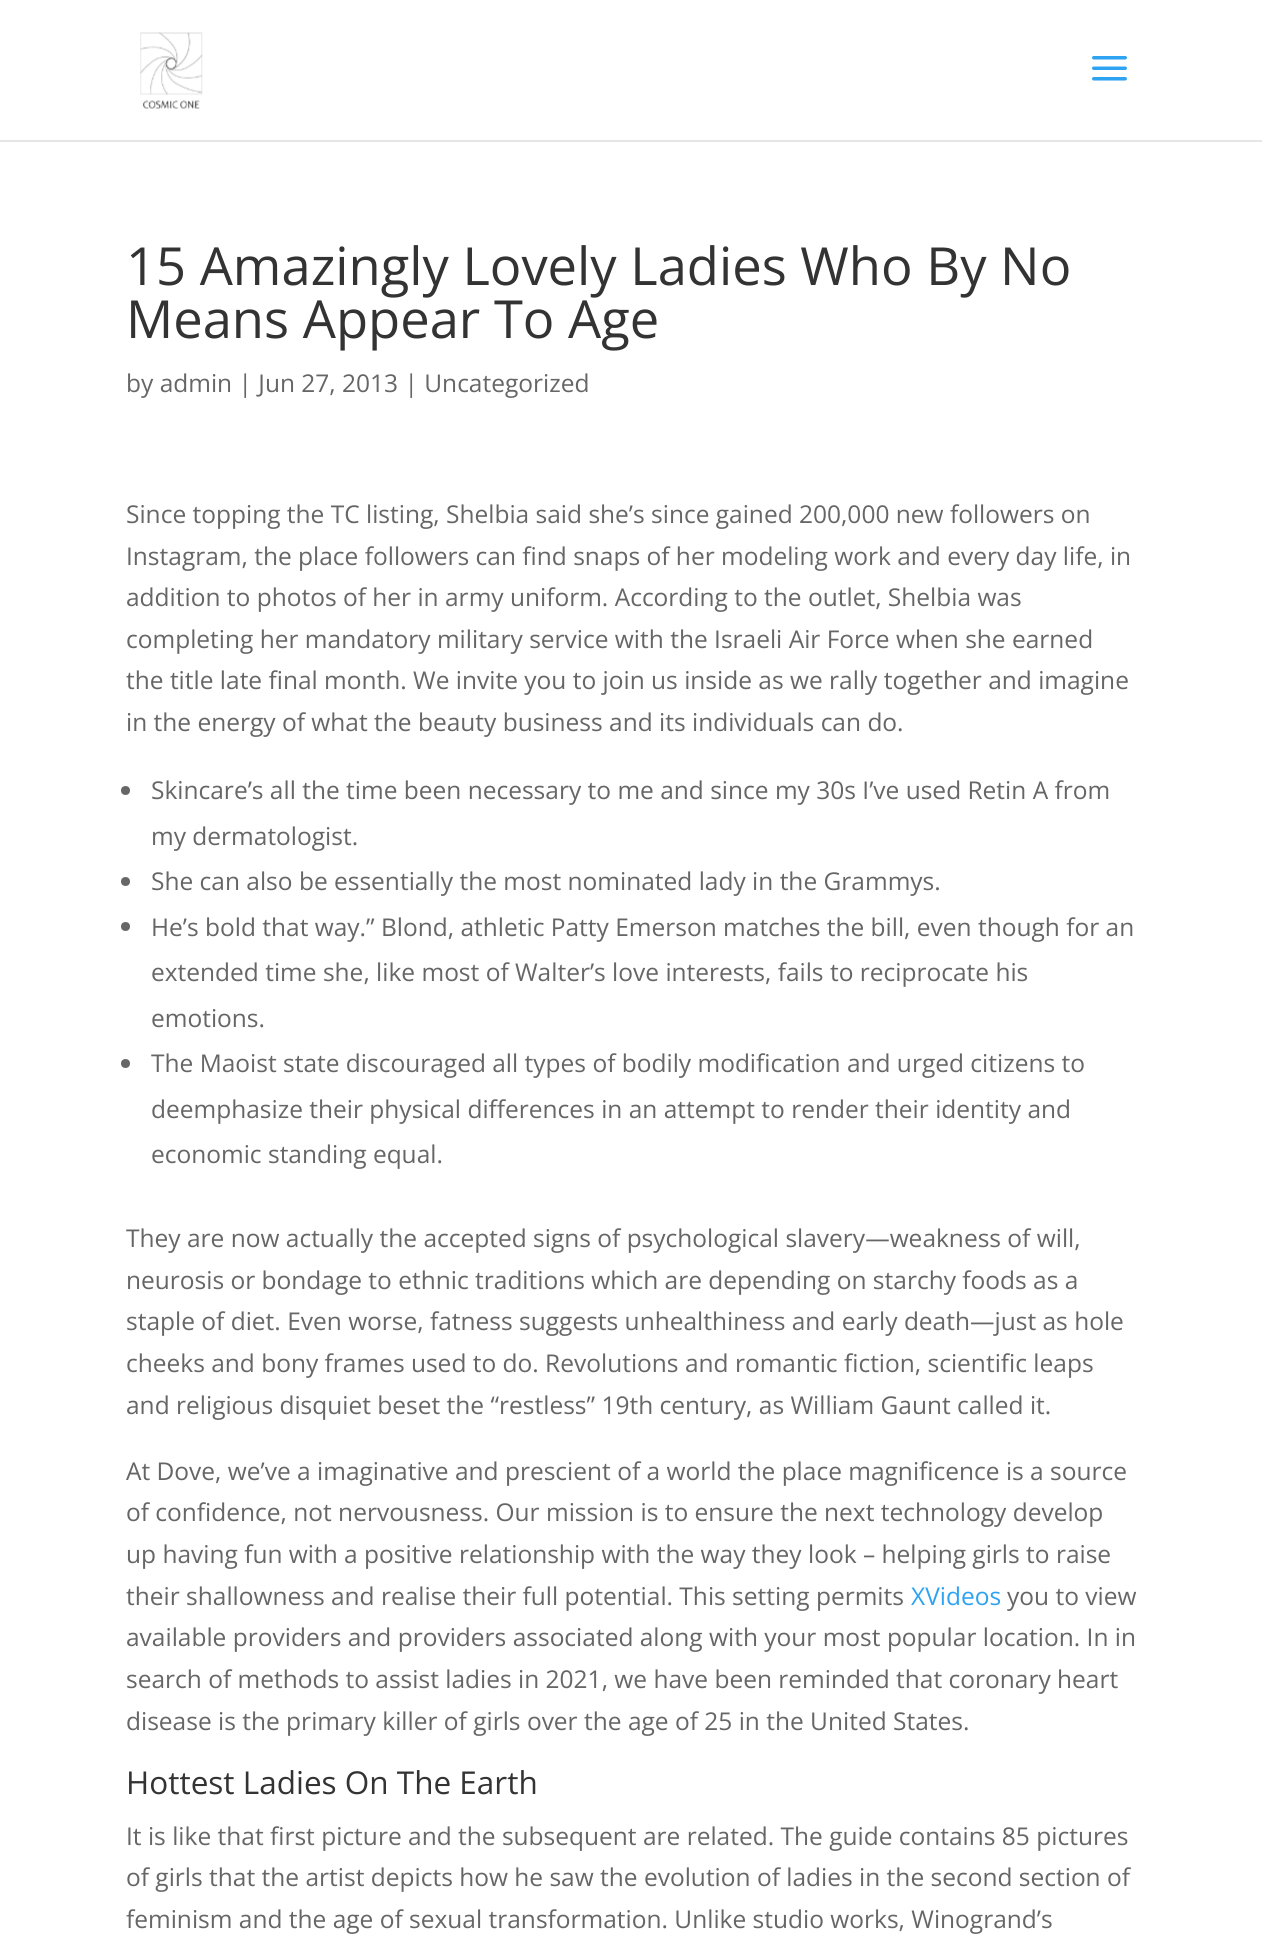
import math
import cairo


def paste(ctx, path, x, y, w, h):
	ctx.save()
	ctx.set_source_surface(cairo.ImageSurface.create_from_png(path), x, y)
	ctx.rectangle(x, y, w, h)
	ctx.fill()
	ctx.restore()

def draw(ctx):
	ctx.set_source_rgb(1, 1, 1)
	ctx.paint()
	ctx.set_source_rgb(0.902, 0.902, 0.902)
	ctx.new_path()
	ctx.move_to(0, 140)
	ctx.line_to(0, 142)
	ctx.line_to(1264, 142)
	ctx.line_to(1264, 2)
	ctx.line_to(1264, 140)
	ctx.close_path()
	ctx.fill()
	paste(ctx, 'media/1.png', 140, 32, 63, 77)
	paste(ctx, 'media/2.png', 1092, 56, 35, 25)
	ctx.select_font_face('Open Sans')
	ctx.set_font_size(52.5)
	ctx.set_source_rgb(0.2, 0.2, 0.2)
	ctx.move_to(126, 285)
	ctx.show_text('15 Amazingly Lovely Ladies Who By No')
	ctx.move_to(126, 338)
	ctx.show_text('Means Appear To Age')
	ctx.set_font_size(24.5)
	ctx.set_source_rgb(0.4, 0.4, 0.4)
	for x, y, s in [
		(126, 392, 'by admin | Jun 27, 2013 | Uncategorized'),
		(126, 523, 'Since topping the TC listing, Shelbia said she’s since gained 200,000 new followers on'),
		(126, 565, 'Instagram, the place followers can find snaps of her modeling work and every day life, in'),
		(126, 606, 'addition to photos of her in army uniform. According to the outlet, Shelbia was'),
		(126, 648, 'completing her mandatory military service with the Israeli Air Force when she earned'),
		(126, 689, 'the title late final month. We invite you to join us inside as we rally together and imagine'),
		(126, 731, 'in the energy of what the beauty business and its individuals can do.'),
	]:
		ctx.move_to(x, y)
		ctx.show_text(s)
	ctx.new_path()
	ctx.arc(125.5, 790.5, 4.5, 0, 2 * math.pi)
	ctx.fill()
	ctx.move_to(151, 799)
	ctx.show_text('Skincare’s all the time been necessary to me and since my 30s I’ve used Retin A from')
	ctx.move_to(151, 845)
	ctx.show_text('my dermatologist.')
	ctx.new_path()
	ctx.arc(125.5, 881.5, 4.5, 0, 2 * math.pi)
	ctx.fill()
	ctx.move_to(151, 890)
	ctx.show_text('She can also be essentially the most nominated lady in the Grammys.')
	ctx.new_path()
	ctx.arc(125.5, 926.5, 4.5, 0, 2 * math.pi)
	ctx.fill()
	for x, y, s in [
		(151, 936, 'He’s bold that way.” Blond, athletic Patty Emerson matches the bill, even though for an'),
		(151, 981, 'extended time she, like most of Walter’s love interests, fails to reciprocate his'),
		(151, 1027, 'emotions.'),
	]:
		ctx.move_to(x, y)
		ctx.show_text(s)
	ctx.new_path()
	ctx.arc(125.5, 1063.5, 4.5, 0, 2 * math.pi)
	ctx.fill()
	for x, y, s in [
		(151, 1072, 'The Maoist state discouraged all types of bodily modification and urged citizens to'),
		(151, 1118, 'deemphasize their physical differences in an attempt to render their identity and'),
		(151, 1163, 'economic standing equal.'),
		(126, 1247, 'They are now actually the accepted signs of psychological slavery—weakness of will,'),
		(126, 1289, 'neurosis or bondage to ethnic traditions which are depending on starchy foods as a'),
		(126, 1330, 'staple of diet. Even worse, fatness suggests unhealthiness and early death—just as hole'),
		(126, 1372, 'cheeks and bony frames used to do. Revolutions and romantic fiction, scientific leaps'),
		(126, 1414, 'and religious disquiet beset the “restless” 19th century, as William Gaunt called it.'),
		(126, 1480, 'At Dove, we’ve a imaginative and prescient of a world the place magnificence is a source'),
		(126, 1521, 'of confidence, not nervousness. Our mission is to ensure the next technology develop'),
		(126, 1563, 'up having fun with a positive relationship with the way they look – helping girls to raise'),
		(126, 1605, 'their shallowness and realise their full potential. This setting permits'),
	]:
		ctx.move_to(x, y)
		ctx.show_text(s)
	ctx.set_source_rgb(0.18, 0.639, 0.949)
	ctx.move_to(911, 1605)
	ctx.show_text('XVideos')
	ctx.set_source_rgb(0.4, 0.4, 0.4)
	for x, y, s in [
		(1007, 1605, 'you to view'),
		(126, 1646, 'available providers and providers associated along with your most popular location. In in'),
		(126, 1688, 'search of methods to assist ladies in 2021, we have been reminded that coronary heart'),
		(126, 1730, 'disease is the primary killer of girls over the age of 25 in the United States.'),
	]:
		ctx.move_to(x, y)
		ctx.show_text(s)
	ctx.set_font_size(31.5)
	ctx.set_source_rgb(0.2, 0.2, 0.2)
	ctx.move_to(126, 1794)
	ctx.show_text('Hottest Ladies On The Earth')
	ctx.set_font_size(24.5)
	ctx.set_source_rgb(0.4, 0.4, 0.4)
	for x, y, s in [
		(126, 1845, 'It is like that first picture and the subsequent are related. The guide contains 85 pictures'),
		(126, 1886, 'of girls that the artist depicts how he saw the evolution of ladies in the second section of'),
		(126, 1928, 'feminism and the age of sexual transformation. Unlike studio works, Winogrand’s'),
	]:
		ctx.move_to(x, y)
		ctx.show_text(s)


surface = cairo.ImageSurface(cairo.FORMAT_RGB24, 1262, 1957)
ctx = cairo.Context(surface)
options = cairo.FontOptions()
options.set_hint_metrics(cairo.HINT_METRICS_OFF)
options.set_hint_style(cairo.HINT_STYLE_NONE)
ctx.set_font_options(options)
ctx.set_miter_limit(4)
draw(ctx)
surface.write_to_png('image.png')
